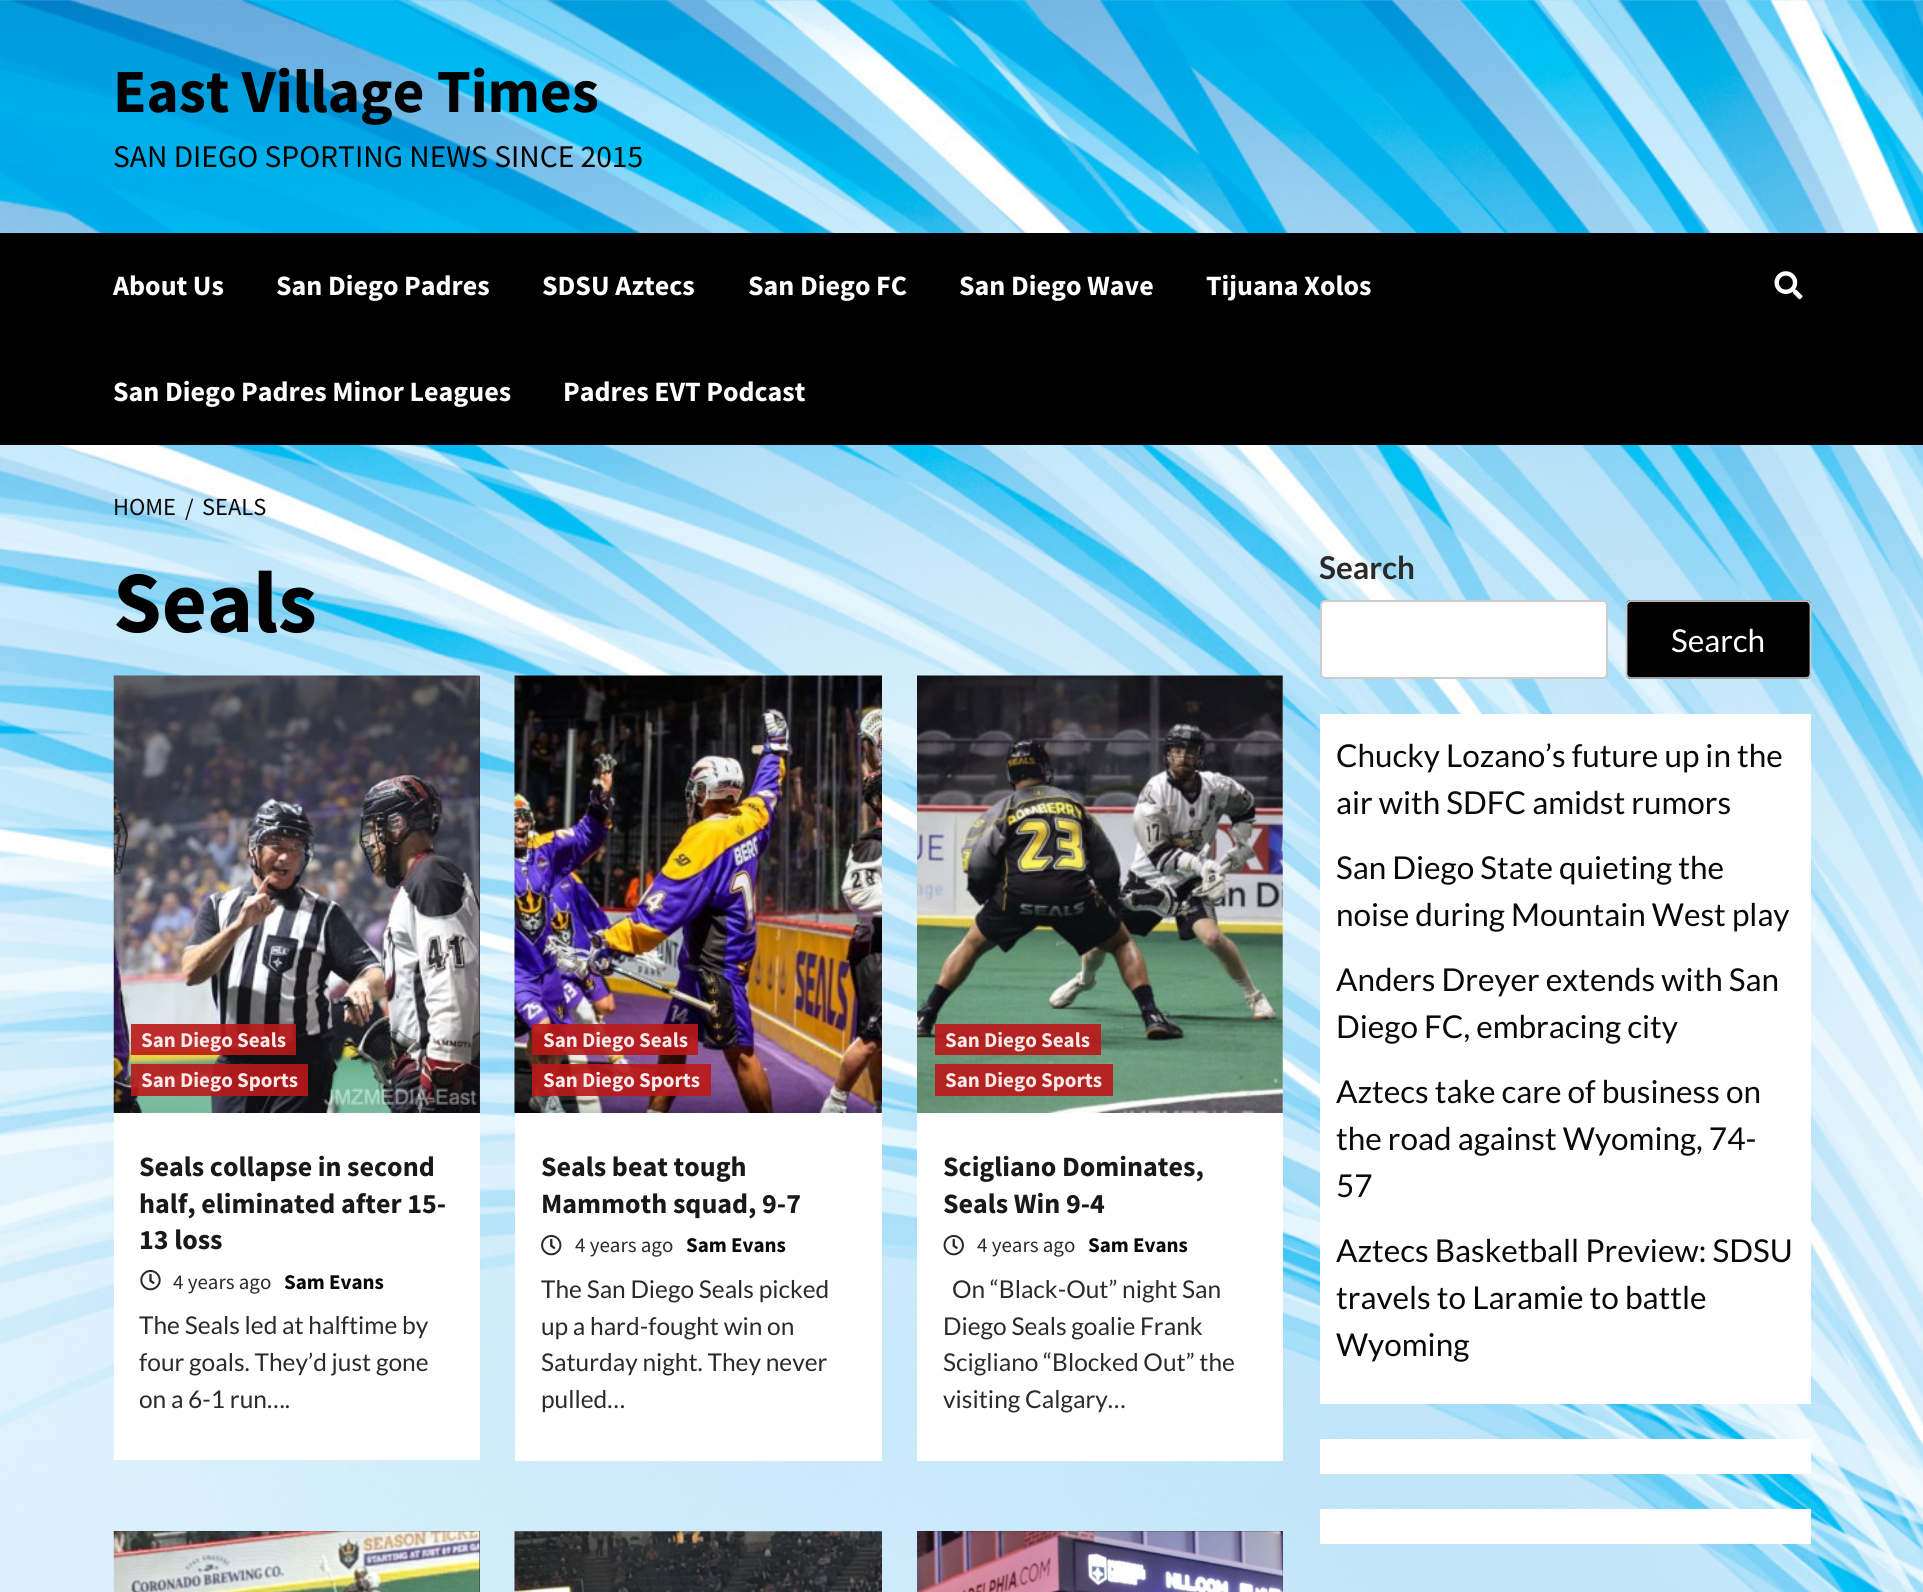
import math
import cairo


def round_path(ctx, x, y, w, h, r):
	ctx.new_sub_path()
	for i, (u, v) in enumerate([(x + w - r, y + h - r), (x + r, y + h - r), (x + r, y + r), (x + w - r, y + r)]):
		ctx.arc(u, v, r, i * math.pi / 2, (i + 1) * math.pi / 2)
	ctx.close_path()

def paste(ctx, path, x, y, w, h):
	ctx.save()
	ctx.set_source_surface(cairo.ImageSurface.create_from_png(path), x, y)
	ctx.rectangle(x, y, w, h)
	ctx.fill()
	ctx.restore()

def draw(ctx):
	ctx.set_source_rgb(1, 1, 1)
	ctx.paint()
	paste(ctx, 'media/1.png', 0, 0, 1923, 1592)
	ctx.select_font_face('Source Sans Pro', cairo.FONT_SLANT_NORMAL, cairo.FONT_WEIGHT_BOLD)
	ctx.set_font_size(61.25)
	ctx.set_source_rgb(0, 0, 0)
	ctx.move_to(113, 112)
	ctx.show_text('East Village Times')
	ctx.select_font_face('Source Sans Pro')
	ctx.set_font_size(31.5)
	ctx.move_to(113, 167)
	ctx.show_text('SAN DIEGO SPORTING NEWS SINCE 2015')
	ctx.rectangle(0, 233, 1923, 212)
	ctx.fill()
	ctx.select_font_face('Source Sans Pro', cairo.FONT_SLANT_NORMAL, cairo.FONT_WEIGHT_BOLD)
	ctx.set_font_size(28)
	ctx.set_source_rgb(1, 1, 1)
	for x, y, s in [
		(113, 295, 'About Us'),
		(276, 295, 'San Diego Padres'),
		(542, 295, 'SDSU Aztecs'),
		(748, 295, 'San Diego FC'),
		(959, 295, 'San Diego Wave'),
		(1206, 295, 'Tijuana Xolos'),
		(113, 401, 'San Diego Padres Minor Leagues'),
		(563, 401, 'Padres EVT Podcast'),
	]:
		ctx.move_to(x, y)
		ctx.show_text(s)
	paste(ctx, 'media/2.png', 1774, 271, 29, 29)
	ctx.select_font_face('Source Sans Pro')
	ctx.set_font_size(24.5)
	ctx.set_source_rgb(0.039, 0.039, 0.039)
	for x, y, s in [
		(113, 515, 'HOME'),
		(185, 516, '/'),
		(202, 515, 'SEALS'),
	]:
		ctx.move_to(x, y)
		ctx.show_text(s)
	ctx.select_font_face('Source Sans Pro', cairo.FONT_SLANT_NORMAL, cairo.FONT_WEIGHT_BOLD)
	ctx.set_font_size(87.5)
	ctx.set_source_rgb(0, 0, 0)
	ctx.move_to(113, 632)
	ctx.show_text('Seals')
	ctx.set_source_rgb(1, 1, 1)
	ctx.rectangle(114, 1113, 366, 347)
	ctx.fill()
	ctx.set_source_rgb(0.165, 0.165, 0.165)
	ctx.rectangle(479, 676, 1, 437)
	ctx.fill()
	paste(ctx, 'media/3.png', 113, 675, 367, 438)
	ctx.set_source_rgba(0.733, 0.098, 0.098, 0.9)
	ctx.rectangle(131, 1024, 165, 31)
	ctx.fill()
	ctx.set_font_size(21)
	ctx.set_source_rgb(0.973, 0.914, 0.914)
	ctx.move_to(141, 1047)
	ctx.show_text('San Diego Seals')
	ctx.set_source_rgba(0.733, 0.098, 0.098, 0.9)
	ctx.rectangle(131, 1064, 177, 32)
	ctx.fill()
	ctx.set_source_rgb(0.973, 0.914, 0.914)
	ctx.move_to(141, 1087)
	ctx.show_text('San Diego Sports')
	ctx.set_font_size(28)
	ctx.set_source_rgb(0.098, 0.098, 0.098)
	for x, y, s in [
		(139, 1176, 'Seals collapse in second'),
		(139, 1213, 'half, eliminated after 15-'),
		(139, 1249, '13 loss'),
	]:
		ctx.move_to(x, y)
		ctx.show_text(s)
	paste(ctx, 'media/4.png', 140, 1269, 21, 22)
	ctx.select_font_face('Source Sans Pro')
	ctx.set_font_size(21)
	ctx.set_source_rgb(0.165, 0.165, 0.165)
	ctx.move_to(173, 1289)
	ctx.show_text('4 years ago')
	ctx.select_font_face('Source Sans Pro', cairo.FONT_SLANT_NORMAL, cairo.FONT_WEIGHT_BOLD)
	ctx.set_source_rgb(0.039, 0.039, 0.039)
	ctx.move_to(284, 1289)
	ctx.show_text('Sam Evans')
	ctx.select_font_face('Lato')
	ctx.set_font_size(24.5)
	ctx.set_source_rgb(0.165, 0.165, 0.165)
	for x, y, s in [
		(139, 1334, 'The Seals led at halftime by'),
		(139, 1371, 'four goals. They’d just gone'),
		(139, 1408, 'on a 6-1 run….'),
	]:
		ctx.move_to(x, y)
		ctx.show_text(s)
	ctx.set_source_rgb(1, 1, 1)
	ctx.rectangle(515, 1113, 367, 348)
	ctx.fill()
	paste(ctx, 'media/5.png', 514, 675, 368, 438)
	ctx.set_source_rgba(0.733, 0.098, 0.098, 0.9)
	ctx.rectangle(532, 1024, 166, 31)
	ctx.fill()
	ctx.select_font_face('Source Sans Pro', cairo.FONT_SLANT_NORMAL, cairo.FONT_WEIGHT_BOLD)
	ctx.set_font_size(21)
	ctx.set_source_rgb(0.973, 0.914, 0.914)
	ctx.move_to(543, 1047)
	ctx.show_text('San Diego Seals')
	ctx.set_source_rgba(0.733, 0.098, 0.098, 0.9)
	ctx.rectangle(532, 1064, 179, 32)
	ctx.fill()
	ctx.set_source_rgb(0.973, 0.914, 0.914)
	ctx.move_to(543, 1087)
	ctx.show_text('San Diego Sports')
	ctx.set_font_size(28)
	ctx.set_source_rgb(0.098, 0.098, 0.098)
	ctx.move_to(541, 1176)
	ctx.show_text('Seals beat tough')
	ctx.move_to(541, 1213)
	ctx.show_text('Mammoth squad, 9-7')
	paste(ctx, 'media/6.png', 541, 1234, 21, 22)
	ctx.select_font_face('Source Sans Pro')
	ctx.set_font_size(21)
	ctx.set_source_rgb(0.165, 0.165, 0.165)
	ctx.move_to(575, 1252)
	ctx.show_text('4 years ago')
	ctx.select_font_face('Source Sans Pro', cairo.FONT_SLANT_NORMAL, cairo.FONT_WEIGHT_BOLD)
	ctx.set_source_rgb(0.039, 0.039, 0.039)
	ctx.move_to(686, 1252)
	ctx.show_text('Sam Evans')
	ctx.select_font_face('Lato')
	ctx.set_font_size(24.5)
	ctx.set_source_rgb(0.165, 0.165, 0.165)
	for x, y, s in [
		(541, 1298, 'The San Diego Seals picked'),
		(541, 1335, 'up a hard-fought win on'),
		(541, 1371, 'Saturday night. They never'),
		(541, 1408, 'pulled…'),
	]:
		ctx.move_to(x, y)
		ctx.show_text(s)
	ctx.set_source_rgb(1, 1, 1)
	ctx.rectangle(917, 676, 366, 785)
	ctx.fill()
	paste(ctx, 'media/7.png', 917, 675, 366, 438)
	ctx.set_source_rgba(0.733, 0.098, 0.098, 0.9)
	ctx.rectangle(935, 1024, 166, 31)
	ctx.fill()
	ctx.select_font_face('Source Sans Pro', cairo.FONT_SLANT_NORMAL, cairo.FONT_WEIGHT_BOLD)
	ctx.set_font_size(21)
	ctx.set_source_rgb(0.973, 0.914, 0.914)
	ctx.move_to(945, 1047)
	ctx.show_text('San Diego Seals')
	ctx.set_source_rgba(0.733, 0.098, 0.098, 0.9)
	ctx.rectangle(935, 1064, 178, 32)
	ctx.fill()
	ctx.set_source_rgb(0.973, 0.914, 0.914)
	ctx.move_to(945, 1087)
	ctx.show_text('San Diego Sports')
	ctx.set_font_size(28)
	ctx.set_source_rgb(0.098, 0.098, 0.098)
	ctx.move_to(943, 1176)
	ctx.show_text('Scigliano Dominates,')
	ctx.move_to(943, 1213)
	ctx.show_text('Seals Win 9-4')
	paste(ctx, 'media/8.png', 943, 1234, 21, 22)
	ctx.select_font_face('Source Sans Pro')
	ctx.set_font_size(21)
	ctx.set_source_rgb(0.165, 0.165, 0.165)
	ctx.move_to(977, 1252)
	ctx.show_text('4 years ago')
	ctx.select_font_face('Source Sans Pro', cairo.FONT_SLANT_NORMAL, cairo.FONT_WEIGHT_BOLD)
	ctx.set_source_rgb(0.039, 0.039, 0.039)
	ctx.move_to(1088, 1252)
	ctx.show_text('Sam Evans')
	ctx.select_font_face('Lato')
	ctx.set_font_size(24.5)
	ctx.set_source_rgb(0.165, 0.165, 0.165)
	for x, y, s in [
		(952, 1298, 'On “Black-Out” night San'),
		(943, 1335, 'Diego Seals goalie Frank'),
		(943, 1371, 'Scigliano “Blocked Out” the'),
		(943, 1408, 'visiting Calgary…'),
	]:
		ctx.move_to(x, y)
		ctx.show_text(s)
	ctx.rectangle(114, 1531, 366, 61)
	ctx.fill()
	paste(ctx, 'media/9.png', 113, 1531, 367, 61)
	paste(ctx, 'media/10.png', 514, 1531, 368, 61)
	ctx.rectangle(917, 1531, 366, 61)
	ctx.fill()
	paste(ctx, 'media/11.png', 917, 1531, 366, 61)
	ctx.select_font_face('Lato', cairo.FONT_SLANT_NORMAL, cairo.FONT_WEIGHT_BOLD)
	ctx.set_font_size(31.5)
	ctx.move_to(1319, 579)
	ctx.show_text('Search')
	ctx.set_source_rgb(1, 1, 1)
	round_path(ctx, 1321, 601, 286, 77, 4)
	ctx.fill_preserve()
	ctx.set_source_rgb(0.8, 0.8, 0.8)
	ctx.stroke()
	ctx.set_source_rgb(0, 0, 0)
	round_path(ctx, 1626, 600, 185, 79, 5)
	ctx.fill()
	ctx.new_path()
	ctx.move_to(1809, 677)
	ctx.curve_to(1808.5, 677.5, 1807, 678, 1806, 678)
	ctx.line_to(1631, 678)
	ctx.curve_to(1630, 678, 1628.5, 677.5, 1628, 677)
	ctx.set_source_rgb(0.733, 0.733, 0.733)
	ctx.set_line_width(1.8)
	ctx.stroke()
	ctx.new_path()
	ctx.move_to(1628, 677)
	ctx.curve_to(1627, 676, 1626.5, 675, 1626.5, 674)
	ctx.line_to(1626.5, 605.5)
	ctx.curve_to(1626.5, 604.5, 1627, 603, 1628, 602.5)
	ctx.curve_to(1628.5, 601.5, 1630, 601, 1631, 601)
	ctx.line_to(1806, 601)
	ctx.curve_to(1807, 601, 1808.5, 601.5, 1809, 602.5)
	ctx.curve_to(1810, 603, 1810.5, 604.5, 1810.5, 605.5)
	ctx.line_to(1810.5, 674)
	ctx.curve_to(1810.5, 675, 1810, 676, 1809, 677)
	ctx.set_source_rgb(0.8, 0.8, 0.8)
	ctx.stroke()
	ctx.select_font_face('Lato')
	ctx.set_source_rgb(1, 1, 1)
	ctx.move_to(1671, 652)
	ctx.show_text('Search')
	ctx.rectangle(1320, 714, 491, 690)
	ctx.fill()
	ctx.set_source_rgb(0.039, 0.039, 0.039)
	for x, y, s in [
		(1336, 767, 'Chucky Lozano’s future up in the'),
		(1336, 814, 'air with SDFC amidst rumors'),
		(1336, 879, 'San Diego State quieting the'),
		(1336, 926, 'noise during Mountain West play'),
		(1336, 991, 'Anders Dreyer extends with San'),
		(1336, 1038, 'Diego FC, embracing city'),
		(1336, 1103, 'Aztecs take care of business on'),
		(1336, 1150, 'the road against Wyoming, 74-'),
		(1336, 1197, '57'),
		(1336, 1262, 'Aztecs Basketball Preview: SDSU'),
		(1336, 1309, 'travels to Laramie to battle'),
		(1336, 1356, 'Wyoming'),
	]:
		ctx.move_to(x, y)
		ctx.show_text(s)
	ctx.set_source_rgb(1, 1, 1)
	ctx.rectangle(1320, 1439, 491, 35)
	ctx.fill()
	ctx.rectangle(1320, 1509, 491, 35)
	ctx.fill()


surface = cairo.ImageSurface(cairo.FORMAT_RGB24, 1923, 1592)
ctx = cairo.Context(surface)
options = cairo.FontOptions()
options.set_hint_metrics(cairo.HINT_METRICS_OFF)
options.set_hint_style(cairo.HINT_STYLE_NONE)
ctx.set_font_options(options)
ctx.set_miter_limit(4)
draw(ctx)
surface.write_to_png('image.png')
